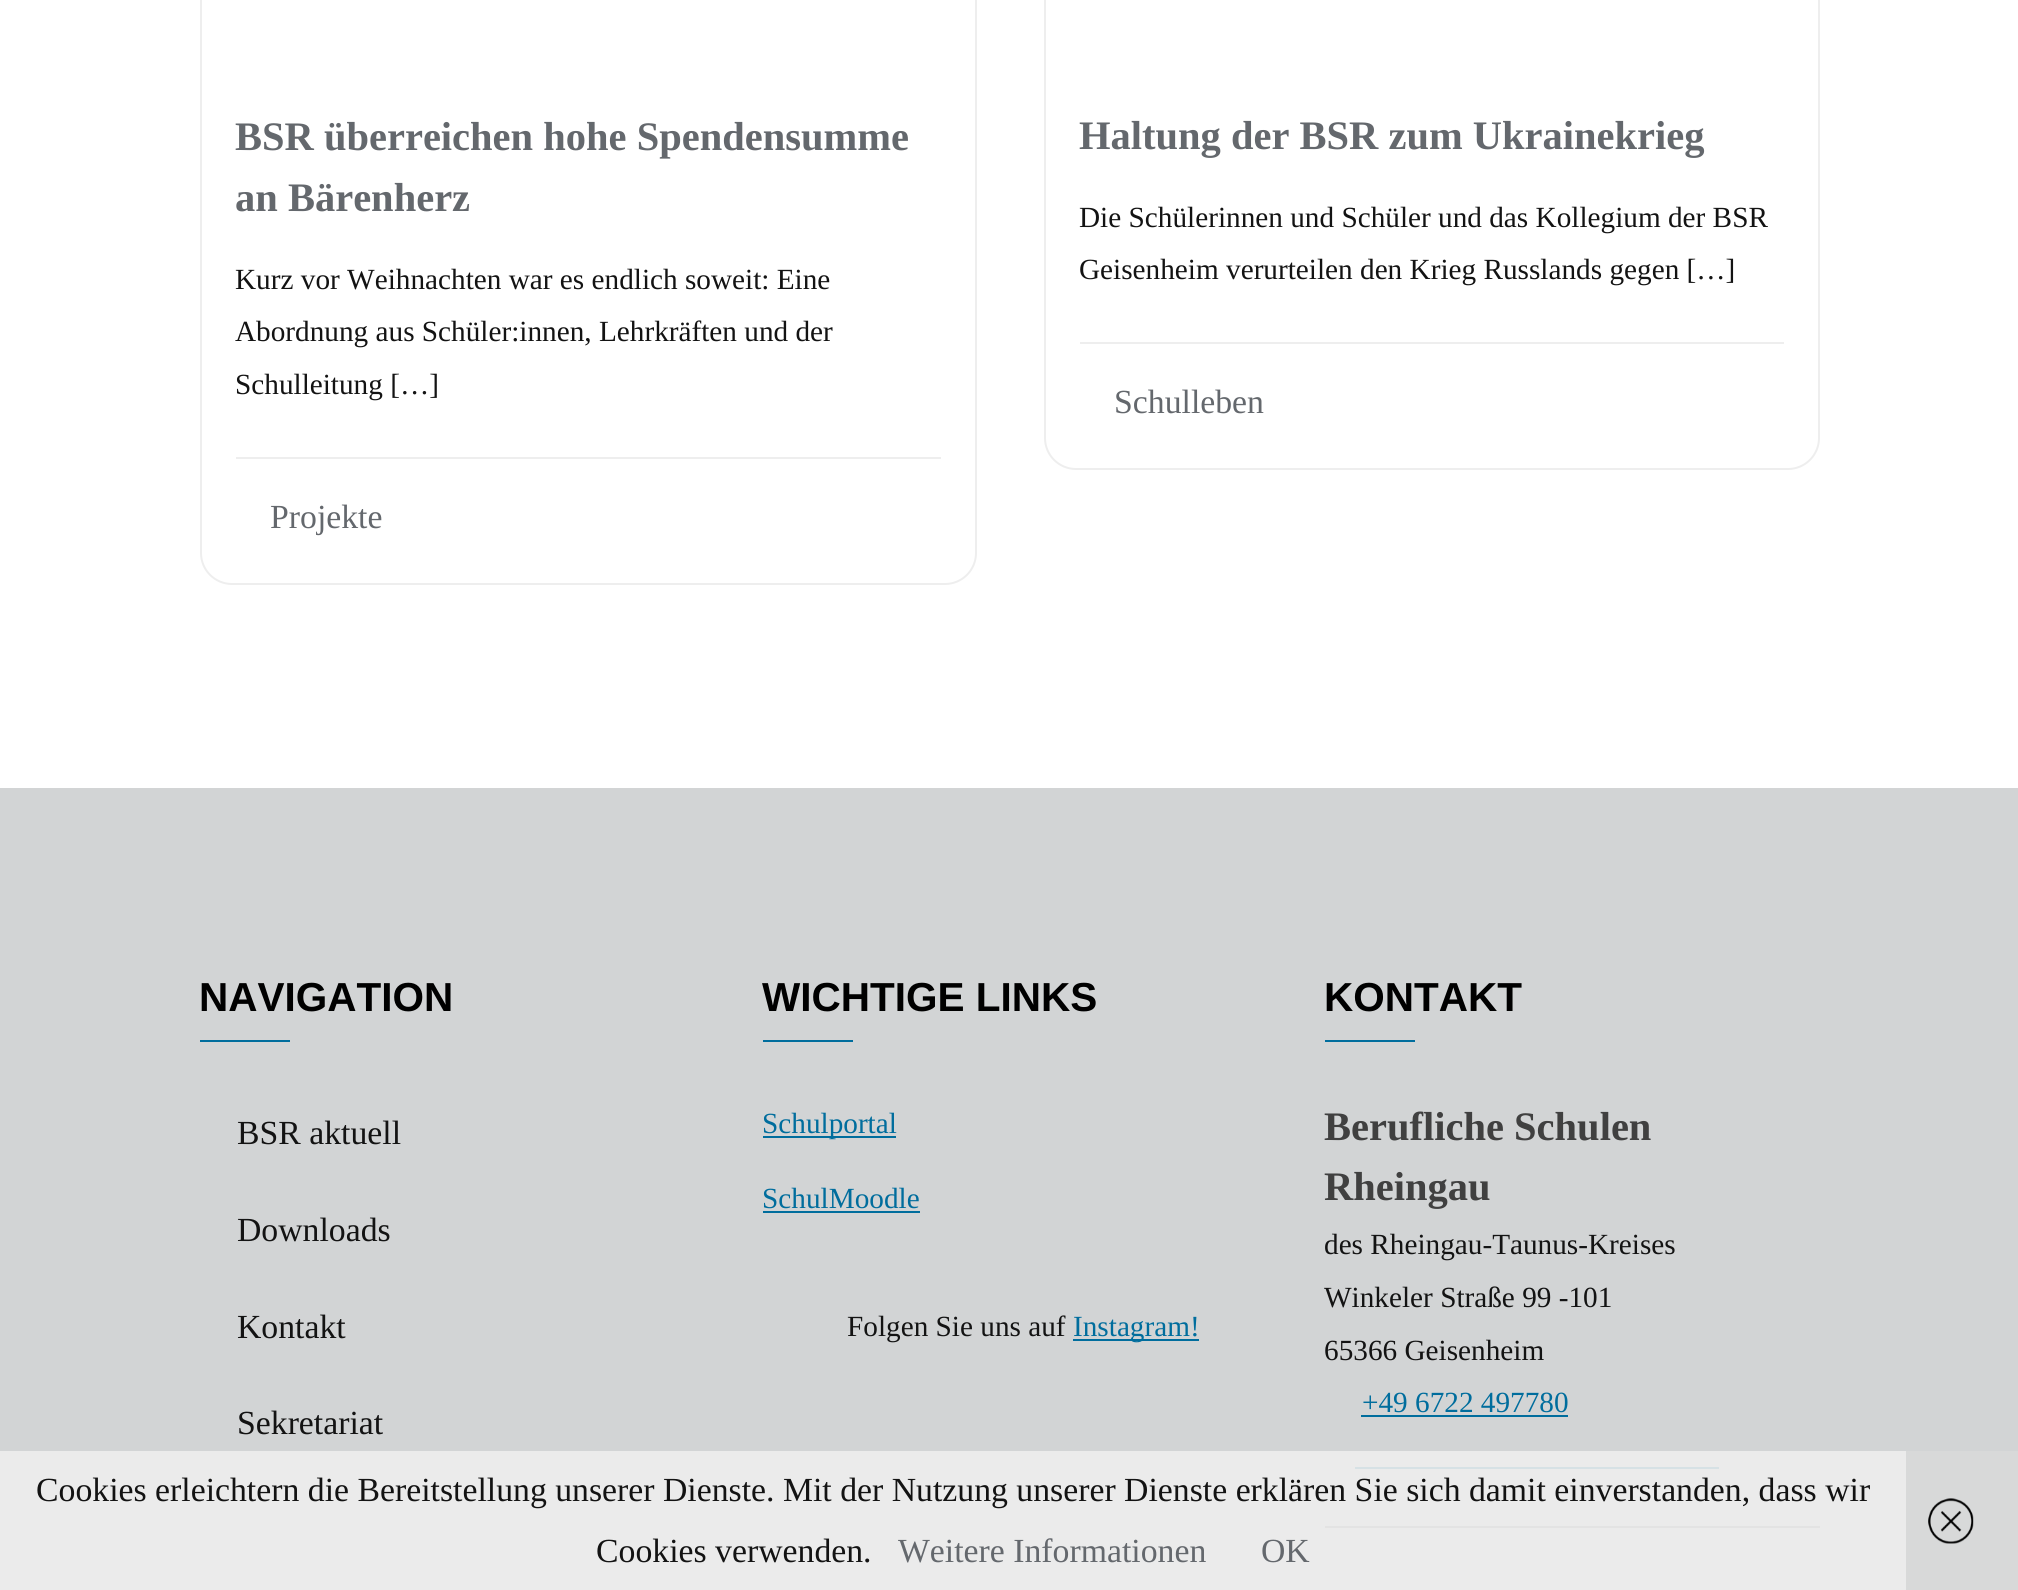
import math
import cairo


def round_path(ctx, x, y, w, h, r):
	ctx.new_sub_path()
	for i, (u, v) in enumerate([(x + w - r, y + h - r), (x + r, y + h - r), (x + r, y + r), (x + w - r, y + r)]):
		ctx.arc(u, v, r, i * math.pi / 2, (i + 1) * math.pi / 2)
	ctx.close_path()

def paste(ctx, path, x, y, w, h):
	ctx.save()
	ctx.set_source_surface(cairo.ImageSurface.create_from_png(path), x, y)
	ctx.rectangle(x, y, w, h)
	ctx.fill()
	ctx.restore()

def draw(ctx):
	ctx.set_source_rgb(1, 1, 1)
	ctx.paint()
	round_path(ctx, 201, -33, 775, 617, 31)
	ctx.set_source_rgb(0.933, 0.933, 0.933)
	ctx.stroke()
	ctx.select_font_face('Liberation Serif', cairo.FONT_SLANT_NORMAL, cairo.FONT_WEIGHT_BOLD)
	ctx.set_font_size(40.5)
	ctx.set_source_rgb(0.392, 0.408, 0.427)
	ctx.move_to(235, 150)
	ctx.show_text('BSR überreichen hohe Spendensumme')
	ctx.move_to(235, 211)
	ctx.show_text('an Bärenherz')
	ctx.select_font_face('Liberation Serif')
	ctx.set_font_size(29.25)
	ctx.set_source_rgb(0.078, 0.078, 0.078)
	for x, y, s in [
		(235, 289, 'Kurz vor Weihnachten war es endlich soweit: Eine'),
		(235, 341, 'Abordnung aus Schüler:innen, Lehrkräften und der'),
		(235, 394, 'Schulleitung […]'),
	]:
		ctx.move_to(x, y)
		ctx.show_text(s)
	ctx.set_source_rgb(0.933, 0.933, 0.933)
	ctx.rectangle(236, 457, 705, 2)
	ctx.fill()
	ctx.set_font_size(33.75)
	ctx.set_source_rgb(0.392, 0.408, 0.427)
	ctx.move_to(270, 528)
	ctx.show_text('Projekte')
	round_path(ctx, 1045, -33, 774, 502, 31)
	ctx.set_source_rgb(0.933, 0.933, 0.933)
	ctx.stroke()
	ctx.select_font_face('Liberation Serif', cairo.FONT_SLANT_NORMAL, cairo.FONT_WEIGHT_BOLD)
	ctx.set_font_size(40.5)
	ctx.set_source_rgb(0.392, 0.408, 0.427)
	ctx.move_to(1079, 149)
	ctx.show_text('Haltung der BSR zum Ukrainekrieg')
	ctx.select_font_face('Liberation Serif')
	ctx.set_font_size(29.25)
	ctx.set_source_rgb(0.078, 0.078, 0.078)
	ctx.move_to(1079, 227)
	ctx.show_text('Die Schülerinnen und Schüler und das Kollegium der BSR')
	ctx.move_to(1079, 279)
	ctx.show_text('Geisenheim verurteilen den Krieg Russlands gegen […]')
	ctx.set_source_rgb(0.933, 0.933, 0.933)
	ctx.rectangle(1080, 342, 704, 2)
	ctx.fill()
	ctx.set_font_size(33.75)
	ctx.set_source_rgb(0.392, 0.408, 0.427)
	ctx.move_to(1114, 413)
	ctx.show_text('Schulleben')
	ctx.set_source_rgb(0.824, 0.831, 0.835)
	ctx.rectangle(0, 788, 2018, 802)
	ctx.fill()
	ctx.select_font_face('Liberation Sans', cairo.FONT_SLANT_NORMAL, cairo.FONT_WEIGHT_BOLD)
	ctx.set_font_size(40.5)
	ctx.set_source_rgb(0, 0, 0)
	ctx.move_to(199, 1011)
	ctx.show_text('NAVIGATION')
	ctx.set_source_rgb(0, 0.427, 0.616)
	ctx.rectangle(200, 1040, 90, 2)
	ctx.fill()
	ctx.select_font_face('Liberation Serif')
	ctx.set_font_size(33.75)
	ctx.set_source_rgb(0.078, 0.078, 0.078)
	for x, y, s in [
		(237, 1144, 'BSR aktuell'),
		(237, 1241, 'Downloads'),
		(237, 1338, 'Kontakt'),
		(237, 1434, 'Sekretariat'),
	]:
		ctx.move_to(x, y)
		ctx.show_text(s)
	ctx.select_font_face('Liberation Sans', cairo.FONT_SLANT_NORMAL, cairo.FONT_WEIGHT_BOLD)
	ctx.set_font_size(40.5)
	ctx.set_source_rgb(0, 0, 0)
	ctx.move_to(762, 1011)
	ctx.show_text('WICHTIGE LINKS')
	ctx.set_source_rgb(0, 0.427, 0.616)
	ctx.rectangle(763, 1040, 90, 2)
	ctx.fill()
	ctx.rectangle(763, 1136, 133, 2)
	ctx.fill()
	ctx.select_font_face('Liberation Serif')
	ctx.set_font_size(29.25)
	ctx.move_to(762, 1133)
	ctx.show_text('Schulportal')
	ctx.move_to(762, 1208)
	ctx.show_text('SchulMoodle')
	ctx.rectangle(763, 1211, 157, 2)
	ctx.fill()
	ctx.set_source_rgb(0.078, 0.078, 0.078)
	ctx.move_to(847, 1336)
	ctx.show_text('Folgen Sie uns auf')
	ctx.set_source_rgb(0, 0.427, 0.616)
	ctx.rectangle(1073, 1339, 126, 2)
	ctx.fill()
	ctx.move_to(1073, 1336)
	ctx.show_text('Instagram!')
	ctx.select_font_face('Liberation Sans', cairo.FONT_SLANT_NORMAL, cairo.FONT_WEIGHT_BOLD)
	ctx.set_font_size(40.5)
	ctx.set_source_rgb(0, 0, 0)
	ctx.move_to(1324, 1011)
	ctx.show_text('KONTAKT')
	ctx.set_source_rgb(0, 0.427, 0.616)
	ctx.rectangle(1325, 1040, 90, 2)
	ctx.fill()
	ctx.select_font_face('Liberation Serif', cairo.FONT_SLANT_NORMAL, cairo.FONT_WEIGHT_BOLD)
	ctx.set_source_rgb(0.251, 0.251, 0.251)
	ctx.move_to(1324, 1140)
	ctx.show_text('Berufliche Schulen')
	ctx.move_to(1324, 1200)
	ctx.show_text('Rheingau')
	ctx.select_font_face('Liberation Serif')
	ctx.set_font_size(29.25)
	ctx.set_source_rgb(0.078, 0.078, 0.078)
	for x, y, s in [
		(1324, 1254, 'des Rheingau-Taunus-Kreises'),
		(1324, 1307, 'Winkeler Straße 99 -101'),
		(1324, 1360, '65366 Geisenheim'),
	]:
		ctx.move_to(x, y)
		ctx.show_text(s)
	ctx.set_source_rgb(0, 0.427, 0.616)
	ctx.move_to(1362, 1412)
	ctx.show_text('+49 6722 497780')
	ctx.rectangle(1361, 1415, 207, 2)
	ctx.rectangle(1355, 1467, 364, 2)
	ctx.fill()
	ctx.set_source_rgb(0.502, 0.502, 0.502)
	ctx.rectangle(1325, 1526, 495, 2)
	ctx.fill()
	ctx.set_source_rgba(0.933, 0.933, 0.933, 0.9)
	ctx.rectangle(0, 1451, 1906, 139)
	ctx.fill()
	ctx.set_font_size(33.75)
	ctx.set_source_rgb(0.078, 0.078, 0.078)
	ctx.move_to(36, 1501)
	ctx.show_text('Cookies erleichtern die Bereitstellung unserer Dienste. Mit der Nutzung unserer Dienste erklären Sie sich damit einverstanden, dass wir')
	ctx.move_to(596, 1562)
	ctx.show_text('Cookies verwenden.')
	ctx.set_source_rgb(0.392, 0.408, 0.427)
	ctx.move_to(898, 1562)
	ctx.show_text('Weitere Informationen')
	ctx.move_to(1261, 1562)
	ctx.show_text('OK')
	ctx.set_source_rgb(0.847, 0.851, 0.851)
	ctx.rectangle(1906, 1451, 112, 139)
	ctx.fill()
	paste(ctx, 'media/1.png', 1928, 1498, 46, 46)


surface = cairo.ImageSurface(cairo.FORMAT_RGB24, 2018, 1590)
ctx = cairo.Context(surface)
options = cairo.FontOptions()
options.set_hint_metrics(cairo.HINT_METRICS_OFF)
options.set_hint_style(cairo.HINT_STYLE_NONE)
ctx.set_font_options(options)
ctx.set_miter_limit(4)
draw(ctx)
surface.write_to_png('image.png')
